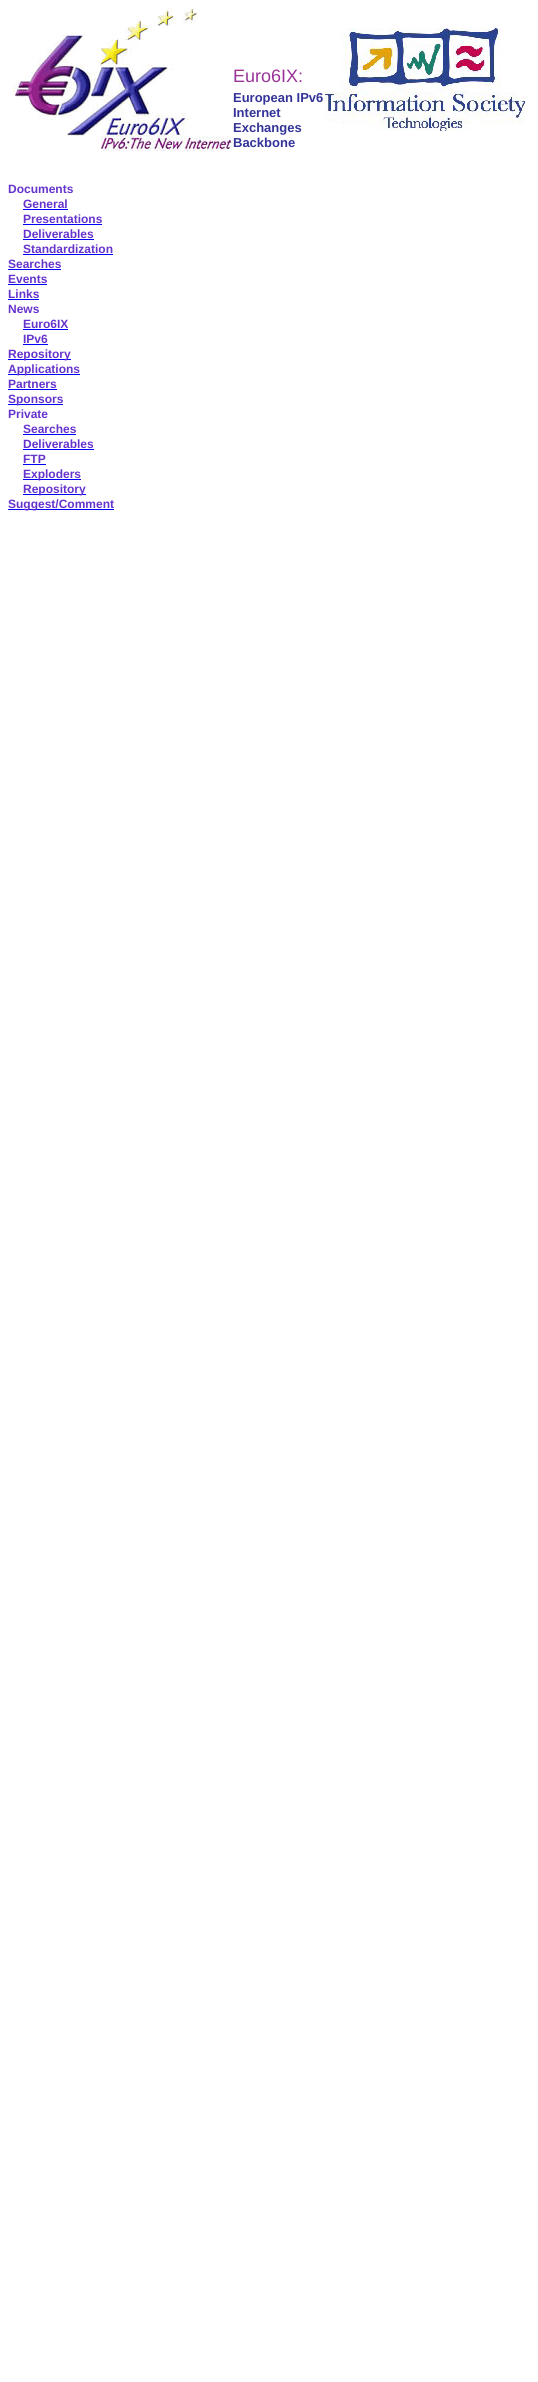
import math
import cairo


def paste(ctx, path, x, y, w, h):
	ctx.save()
	ctx.set_source_surface(cairo.ImageSurface.create_from_png(path), x, y)
	ctx.rectangle(x, y, w, h)
	ctx.fill()
	ctx.restore()

def draw(ctx):
	ctx.set_source_rgb(1, 1, 1)
	ctx.paint()
	paste(ctx, 'media/1.png', 13, 8, 220, 143)
	ctx.select_font_face('Liberation Sans')
	ctx.set_font_size(18)
	ctx.set_source_rgb(0.6, 0.2, 0.6)
	ctx.move_to(233, 82)
	ctx.show_text('Euro6IX:')
	paste(ctx, 'media/2.png', 325, 28, 200, 103)
	ctx.select_font_face('Liberation Sans', cairo.FONT_SLANT_NORMAL, cairo.FONT_WEIGHT_BOLD)
	ctx.set_font_size(13)
	ctx.set_source_rgb(0.2, 0.2, 0.6)
	for x, y, s in [
		(233, 102, 'European IPv6'),
		(233, 117, 'Internet'),
		(233, 132, 'Exchanges'),
		(233, 147, 'Backbone'),
	]:
		ctx.move_to(x, y)
		ctx.show_text(s)
	ctx.set_font_size(12)
	ctx.set_source_rgb(0.4, 0.2, 0.8)
	ctx.move_to(8, 193)
	ctx.show_text('Documents')
	ctx.move_to(23, 208)
	ctx.show_text('General')
	ctx.set_source_rgb(0, 0, 1)
	ctx.rectangle(23, 209, 45, 1)
	ctx.fill()
	ctx.set_source_rgb(0.4, 0.2, 0.8)
	ctx.move_to(23, 223)
	ctx.show_text('Presentations')
	ctx.set_source_rgb(0, 0, 1)
	ctx.rectangle(23, 224, 79, 1)
	ctx.fill()
	ctx.set_source_rgb(0.4, 0.2, 0.8)
	ctx.move_to(23, 238)
	ctx.show_text('Deliverables')
	ctx.set_source_rgb(0, 0, 1)
	ctx.rectangle(23, 239, 71, 1)
	ctx.fill()
	ctx.set_source_rgb(0.4, 0.2, 0.8)
	ctx.move_to(23, 253)
	ctx.show_text('Standardization')
	ctx.set_source_rgb(0, 0, 1)
	ctx.rectangle(23, 254, 90, 1)
	ctx.fill()
	ctx.set_source_rgb(0.4, 0.2, 0.8)
	ctx.move_to(8, 268)
	ctx.show_text('Searches')
	ctx.set_source_rgb(0, 0, 1)
	ctx.rectangle(8, 269, 53, 1)
	ctx.fill()
	ctx.set_source_rgb(0.4, 0.2, 0.8)
	ctx.move_to(8, 283)
	ctx.show_text('Events')
	ctx.set_source_rgb(0, 0, 1)
	ctx.rectangle(8, 284, 39, 1)
	ctx.fill()
	ctx.set_source_rgb(0.4, 0.2, 0.8)
	ctx.move_to(8, 298)
	ctx.show_text('Links')
	ctx.set_source_rgb(0, 0, 1)
	ctx.rectangle(8, 299, 31, 1)
	ctx.fill()
	ctx.set_source_rgb(0.4, 0.2, 0.8)
	ctx.move_to(8, 313)
	ctx.show_text('News')
	ctx.move_to(23, 328)
	ctx.show_text('Euro6IX')
	ctx.set_source_rgb(0, 0, 1)
	ctx.rectangle(23, 329, 45, 1)
	ctx.fill()
	ctx.set_source_rgb(0.4, 0.2, 0.8)
	ctx.move_to(23, 343)
	ctx.show_text('IPv6')
	ctx.set_source_rgb(0, 0, 1)
	ctx.rectangle(23, 344, 25, 1)
	ctx.fill()
	ctx.rectangle(8, 359, 63, 1)
	ctx.fill()
	ctx.set_source_rgb(0.4, 0.2, 0.8)
	ctx.move_to(8, 358)
	ctx.show_text('Repository')
	ctx.set_source_rgb(0, 0, 1)
	ctx.rectangle(8, 374, 72, 1)
	ctx.fill()
	ctx.set_source_rgb(0.4, 0.2, 0.8)
	ctx.move_to(8, 373)
	ctx.show_text('Applications')
	ctx.move_to(8, 388)
	ctx.show_text('Partners')
	ctx.set_source_rgb(0, 0, 1)
	ctx.rectangle(8, 389, 49, 1)
	ctx.fill()
	ctx.rectangle(8, 404, 55, 1)
	ctx.fill()
	ctx.set_source_rgb(0.4, 0.2, 0.8)
	for x, y, s in [
		(8, 403, 'Sponsors'),
		(8, 418, 'Private'),
		(23, 433, 'Searches'),
	]:
		ctx.move_to(x, y)
		ctx.show_text(s)
	ctx.set_source_rgb(0, 0, 1)
	ctx.rectangle(23, 434, 53, 1)
	ctx.fill()
	ctx.set_source_rgb(0.4, 0.2, 0.8)
	ctx.move_to(23, 448)
	ctx.show_text('Deliverables')
	ctx.set_source_rgb(0, 0, 1)
	ctx.rectangle(23, 449, 71, 1)
	ctx.fill()
	ctx.set_source_rgb(0.4, 0.2, 0.8)
	ctx.move_to(23, 463)
	ctx.show_text('FTP')
	ctx.set_source_rgb(0, 0, 1)
	ctx.rectangle(23, 464, 23, 1)
	ctx.fill()
	ctx.rectangle(23, 479, 58, 1)
	ctx.fill()
	ctx.set_source_rgb(0.4, 0.2, 0.8)
	ctx.move_to(23, 478)
	ctx.show_text('Exploders')
	ctx.set_source_rgb(0, 0, 1)
	ctx.rectangle(23, 494, 63, 1)
	ctx.fill()
	ctx.set_source_rgb(0.4, 0.2, 0.8)
	ctx.move_to(23, 493)
	ctx.show_text('Repository')
	ctx.set_source_rgb(0, 0, 1)
	ctx.rectangle(8, 509, 106, 1)
	ctx.fill()
	ctx.set_source_rgb(0.4, 0.2, 0.8)
	ctx.move_to(8, 508)
	ctx.show_text('Suggest/Comment')


surface = cairo.ImageSurface(cairo.FORMAT_RGB24, 538, 2382)
ctx = cairo.Context(surface)
options = cairo.FontOptions()
options.set_hint_metrics(cairo.HINT_METRICS_OFF)
options.set_hint_style(cairo.HINT_STYLE_NONE)
ctx.set_font_options(options)
ctx.set_miter_limit(4)
draw(ctx)
surface.write_to_png('image.png')
